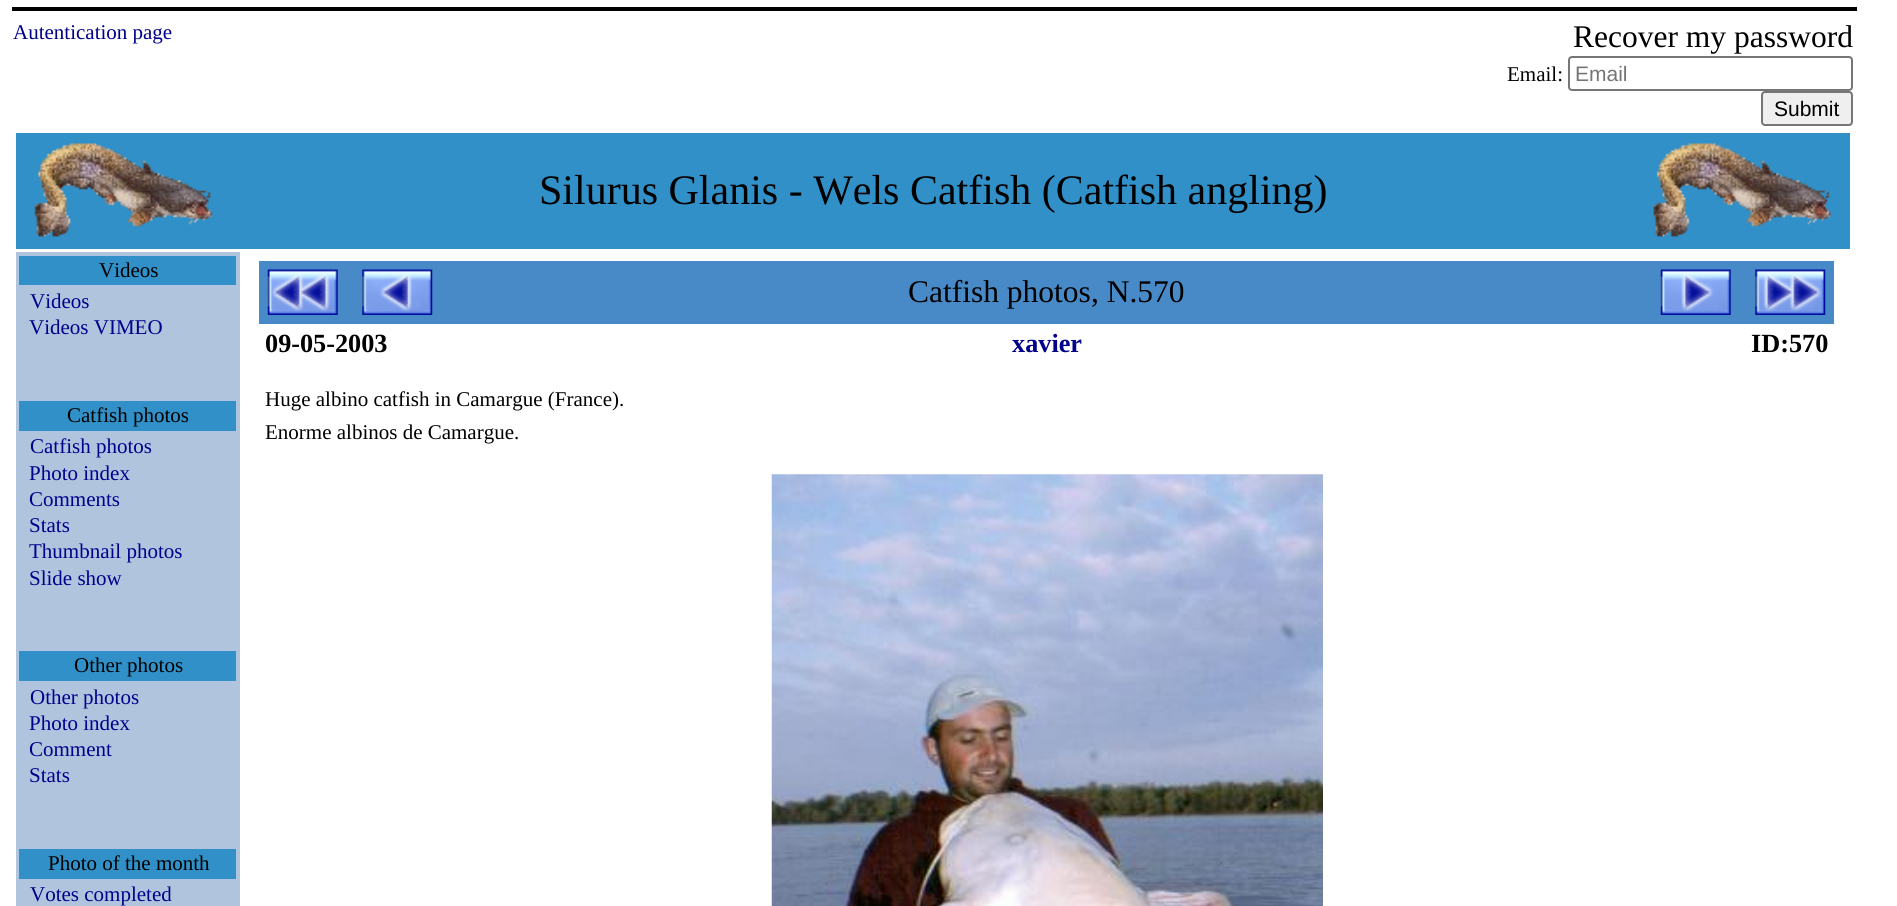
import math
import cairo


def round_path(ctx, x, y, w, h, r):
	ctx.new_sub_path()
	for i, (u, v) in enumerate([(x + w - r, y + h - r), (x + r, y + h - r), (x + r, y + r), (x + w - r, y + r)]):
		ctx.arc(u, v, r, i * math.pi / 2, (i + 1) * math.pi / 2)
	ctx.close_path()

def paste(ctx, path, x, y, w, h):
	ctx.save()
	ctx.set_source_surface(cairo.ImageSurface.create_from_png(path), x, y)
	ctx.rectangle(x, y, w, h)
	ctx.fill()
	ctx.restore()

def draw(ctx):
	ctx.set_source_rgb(1, 1, 1)
	ctx.paint()
	ctx.set_source_rgb(0, 0, 0)
	ctx.rectangle(12, 7, 1845, 4)
	ctx.fill()
	ctx.select_font_face('Liberation Serif')
	ctx.set_font_size(21)
	ctx.set_source_rgb(0, 0, 0.545)
	ctx.move_to(13, 39)
	ctx.show_text('Autentication page')
	ctx.set_font_size(31.5)
	ctx.set_source_rgb(0, 0, 0)
	ctx.move_to(1573, 47)
	ctx.show_text('Recover my password')
	ctx.set_font_size(21)
	ctx.move_to(1507, 81)
	ctx.show_text('Email:')
	round_path(ctx, 1569, 57, 283, 33, 3)
	ctx.set_source_rgb(0.463, 0.463, 0.463)
	ctx.stroke()
	ctx.select_font_face('Liberation Sans')
	ctx.set_source_rgb(0.459, 0.459, 0.459)
	ctx.move_to(1575, 81)
	ctx.show_text('Email')
	ctx.set_source_rgb(0.937, 0.937, 0.937)
	round_path(ctx, 1762, 92, 90, 33, 3)
	ctx.fill_preserve()
	ctx.set_source_rgb(0.463, 0.463, 0.463)
	ctx.stroke()
	ctx.set_source_rgb(0, 0, 0)
	ctx.move_to(1774, 116)
	ctx.show_text('Submit')
	ctx.set_source_rgb(0.188, 0.565, 0.78)
	ctx.rectangle(16, 133, 1834, 116)
	ctx.fill()
	paste(ctx, 'media/1.png', 34, 143, 179, 94)
	ctx.select_font_face('Liberation Serif')
	ctx.set_font_size(42)
	ctx.set_source_rgb(0, 0, 0)
	ctx.move_to(539, 204)
	ctx.show_text('Silurus Glanis - Wels Catfish (Catfish angling)')
	paste(ctx, 'media/2.png', 1653, 143, 178, 94)
	ctx.set_source_rgb(0.69, 0.769, 0.871)
	ctx.rectangle(16, 252, 224, 654)
	ctx.fill()
	ctx.set_source_rgb(0.188, 0.565, 0.78)
	ctx.rectangle(19, 256, 217, 29)
	ctx.fill()
	ctx.set_font_size(21)
	ctx.set_source_rgb(0, 0, 0)
	ctx.move_to(99, 277)
	ctx.show_text('Videos')
	ctx.set_source_rgb(0, 0, 0.545)
	ctx.move_to(30, 308)
	ctx.show_text('Videos')
	ctx.move_to(29, 334)
	ctx.show_text('Videos VIMEO')
	ctx.set_source_rgb(0.188, 0.565, 0.78)
	ctx.rectangle(19, 401, 217, 30)
	ctx.fill()
	ctx.set_source_rgb(0, 0, 0)
	ctx.move_to(67, 422)
	ctx.show_text('Catfish photos')
	ctx.set_source_rgb(0, 0, 0.545)
	for x, y, s in [
		(30, 453, 'Catfish photos'),
		(29, 480, 'Photo index'),
		(29, 506, 'Comments'),
		(29, 532, 'Stats'),
		(29, 558, 'Thumbnail photos'),
		(29, 585, 'Slide show'),
	]:
		ctx.move_to(x, y)
		ctx.show_text(s)
	ctx.set_source_rgb(0.188, 0.565, 0.78)
	ctx.rectangle(19, 651, 217, 30)
	ctx.fill()
	ctx.set_source_rgb(0, 0, 0)
	ctx.move_to(74, 672)
	ctx.show_text('Other photos')
	ctx.set_source_rgb(0, 0, 0.545)
	for x, y, s in [
		(30, 704, 'Other photos'),
		(29, 730, 'Photo index'),
		(29, 756, 'Comment'),
		(29, 782, 'Stats'),
	]:
		ctx.move_to(x, y)
		ctx.show_text(s)
	ctx.set_source_rgb(0.188, 0.565, 0.78)
	ctx.rectangle(19, 849, 217, 30)
	ctx.fill()
	ctx.set_source_rgb(0, 0, 0)
	ctx.move_to(48, 870)
	ctx.show_text('Photo of the month')
	ctx.set_source_rgb(0, 0, 0.545)
	ctx.move_to(30, 901)
	ctx.show_text('Votes completed')
	ctx.set_source_rgb(0.282, 0.541, 0.78)
	ctx.rectangle(259, 261, 1575, 63)
	ctx.fill()
	paste(ctx, 'media/3.png', 267, 269, 71, 46)
	paste(ctx, 'media/4.png', 362, 269, 71, 46)
	ctx.set_font_size(31.5)
	ctx.set_source_rgb(0, 0, 0)
	ctx.move_to(908, 302)
	ctx.show_text('Catfish photos, N.570')
	paste(ctx, 'media/5.png', 1660, 269, 71, 46)
	paste(ctx, 'media/6.png', 1755, 269, 71, 46)
	ctx.select_font_face('Liberation Serif', cairo.FONT_SLANT_NORMAL, cairo.FONT_WEIGHT_BOLD)
	ctx.set_font_size(26.25)
	ctx.move_to(265, 352)
	ctx.show_text('09-05-2003')
	ctx.set_source_rgb(0, 0, 0.545)
	ctx.move_to(1012, 352)
	ctx.show_text('xavier')
	ctx.set_source_rgb(0, 0, 0)
	ctx.move_to(1751, 352)
	ctx.show_text('ID:570')
	ctx.select_font_face('Liberation Serif')
	ctx.set_font_size(21)
	ctx.move_to(265, 406)
	ctx.show_text('Huge albino catfish in Camargue (France).')
	ctx.move_to(265, 439)
	ctx.show_text('Enorme albinos de Camargue.')
	paste(ctx, 'media/7.png', 771, 474, 552, 432)


surface = cairo.ImageSurface(cairo.FORMAT_RGB24, 1897, 906)
ctx = cairo.Context(surface)
options = cairo.FontOptions()
options.set_hint_metrics(cairo.HINT_METRICS_OFF)
options.set_hint_style(cairo.HINT_STYLE_NONE)
ctx.set_font_options(options)
ctx.set_miter_limit(4)
draw(ctx)
surface.write_to_png('image.png')
